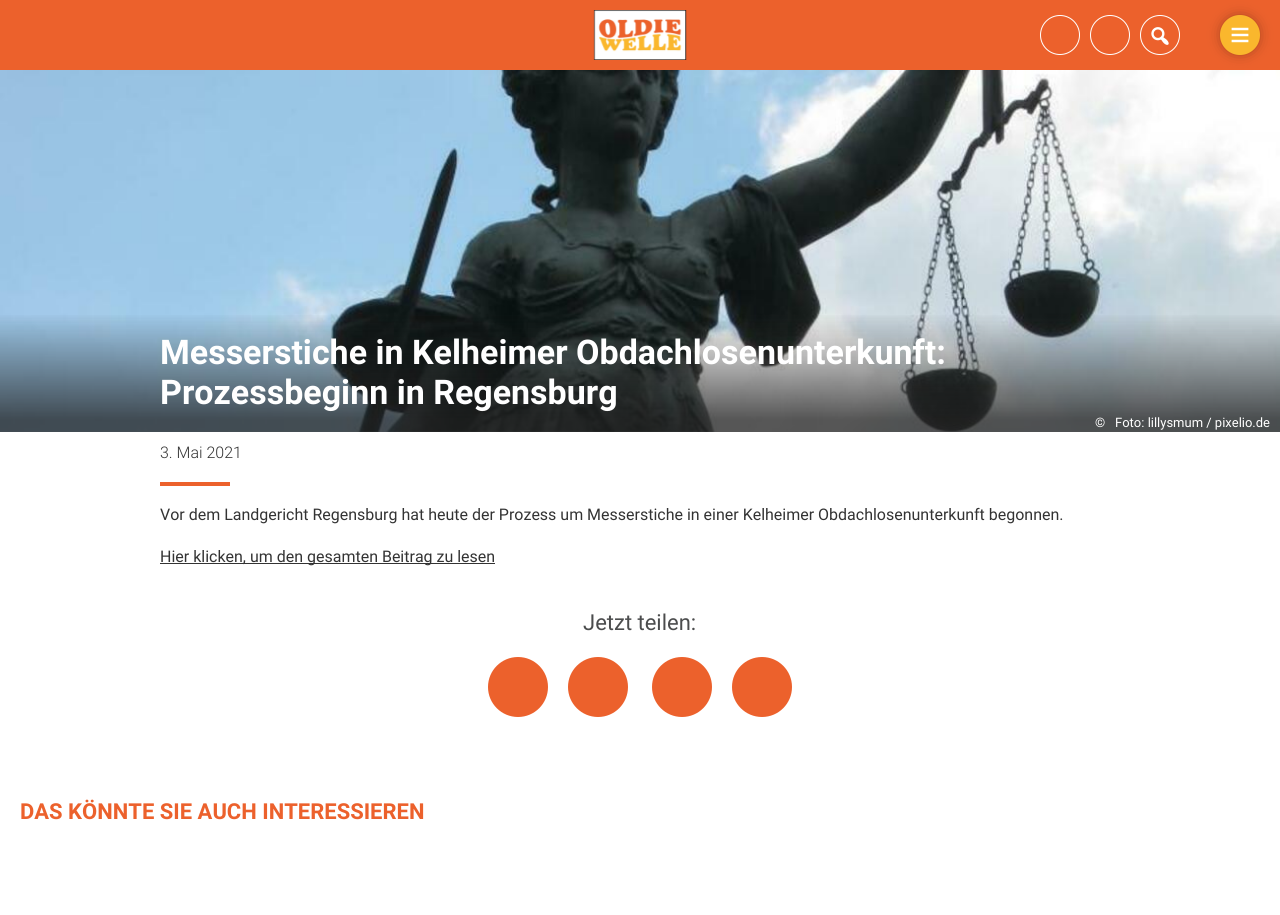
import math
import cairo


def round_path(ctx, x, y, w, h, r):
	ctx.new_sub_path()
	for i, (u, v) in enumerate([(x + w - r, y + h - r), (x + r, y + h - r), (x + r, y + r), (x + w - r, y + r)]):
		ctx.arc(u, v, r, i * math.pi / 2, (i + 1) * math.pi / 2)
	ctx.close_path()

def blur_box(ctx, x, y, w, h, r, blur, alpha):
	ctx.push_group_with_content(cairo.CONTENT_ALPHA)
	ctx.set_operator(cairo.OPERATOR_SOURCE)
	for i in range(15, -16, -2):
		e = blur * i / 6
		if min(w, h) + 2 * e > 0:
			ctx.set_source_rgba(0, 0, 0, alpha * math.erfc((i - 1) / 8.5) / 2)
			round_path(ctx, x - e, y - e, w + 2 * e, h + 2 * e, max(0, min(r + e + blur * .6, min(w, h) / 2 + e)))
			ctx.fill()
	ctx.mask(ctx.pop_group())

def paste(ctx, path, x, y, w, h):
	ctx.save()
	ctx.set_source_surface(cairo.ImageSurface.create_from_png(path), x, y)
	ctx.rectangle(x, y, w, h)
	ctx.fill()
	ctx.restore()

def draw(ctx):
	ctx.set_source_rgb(1, 1, 1)
	ctx.paint()
	ctx.set_source_rgb(0.925, 0.38, 0.173)
	ctx.rectangle(0, 0, 1280, 70)
	ctx.fill()
	paste(ctx, 'media/1.png', 593, 10, 94, 50)
	ctx.arc(1060, 35, 19.5, 0, 2 * math.pi)
	ctx.set_source_rgb(1, 1, 1)
	ctx.set_line_width(1)
	ctx.stroke()
	ctx.arc(1110, 35, 19.5, 0, 2 * math.pi)
	ctx.stroke()
	ctx.arc(1160, 35, 19.5, 0, 2 * math.pi)
	ctx.stroke()
	paste(ctx, 'media/2.png', 1151, 27, 18, 18)
	paste(ctx, 'media/4.png', 0, 70, 1280, 362)
	ctx.set_source_rgb(0, 0, 0)
	blur_box(ctx, 1225, 20, 30, 30, 15, 7.5, 0.5)
	ctx.set_source_rgb(0.98, 0.718, 0.176)
	ctx.arc(1240, 35, 20, 0, 2 * math.pi)
	ctx.fill()
	paste(ctx, 'media/3.png', 1231, 27, 18, 16)
	gradient = cairo.LinearGradient(640, 312, 640, 432)
	gradient.add_color_stop_rgba(0, 0.125, 0.125, 0.125, 0)
	gradient.add_color_stop_rgba(0.9, 0.125, 0.125, 0.125, 0.75)
	ctx.set_source(gradient)
	ctx.rectangle(0, 315, 1280, 117)
	ctx.fill()
	ctx.select_font_face('Roboto', cairo.FONT_SLANT_NORMAL, cairo.FONT_WEIGHT_BOLD)
	ctx.set_font_size(34)
	ctx.set_source_rgb(1, 1, 1)
	ctx.move_to(160, 364)
	ctx.show_text('Messerstiche in Kelheimer Obdachlosenunterkunft:')
	ctx.move_to(160, 404)
	ctx.show_text('Prozessbeginn in Regensburg')
	ctx.select_font_face('Roboto')
	ctx.set_font_size(13)
	ctx.move_to(1095, 427)
	ctx.show_text('©')
	ctx.move_to(1115, 427)
	ctx.show_text('Foto: lillysmum / pixelio.de')
	ctx.select_font_face('Roboto Light')
	ctx.set_font_size(16)
	ctx.set_source_rgb(0.2, 0.2, 0.2)
	ctx.move_to(160, 458)
	ctx.show_text('3. Mai 2021')
	ctx.set_source_rgb(0.925, 0.38, 0.173)
	ctx.rectangle(160, 482, 70, 4)
	ctx.fill()
	ctx.select_font_face('Roboto')
	ctx.set_source_rgb(0.2, 0.2, 0.2)
	ctx.move_to(160, 520)
	ctx.show_text('Vor dem Landgericht Regensburg hat heute der Prozess um Messerstiche in einer Kelheimer Obdachlosenunterkunft begonnen.')
	ctx.rectangle(160, 563, 335, 1)
	ctx.fill()
	ctx.move_to(160, 562)
	ctx.show_text('Hier klicken, um den gesamten Beitrag zu lesen')
	ctx.set_font_size(22)
	ctx.set_source_rgb(0.294, 0.298, 0.302)
	ctx.move_to(583, 630)
	ctx.show_text('Jetzt teilen:')
	ctx.set_source_rgb(0.925, 0.38, 0.173)
	ctx.new_path()
	ctx.arc(518, 687, 30, 0, 2 * math.pi)
	ctx.fill()
	ctx.arc(598, 687, 30, 0, 2 * math.pi)
	ctx.fill()
	ctx.arc(682, 687, 30, 0, 2 * math.pi)
	ctx.fill()
	ctx.arc(762, 687, 30, 0, 2 * math.pi)
	ctx.fill()
	ctx.select_font_face('Roboto', cairo.FONT_SLANT_NORMAL, cairo.FONT_WEIGHT_BOLD)
	ctx.move_to(20, 819)
	ctx.show_text('DAS KÖNNTE SIE AUCH INTERESSIEREN')


surface = cairo.ImageSurface(cairo.FORMAT_RGB24, 1280, 915)
ctx = cairo.Context(surface)
options = cairo.FontOptions()
options.set_hint_metrics(cairo.HINT_METRICS_OFF)
options.set_hint_style(cairo.HINT_STYLE_NONE)
ctx.set_font_options(options)
ctx.set_miter_limit(4)
draw(ctx)
surface.write_to_png('image.png')
